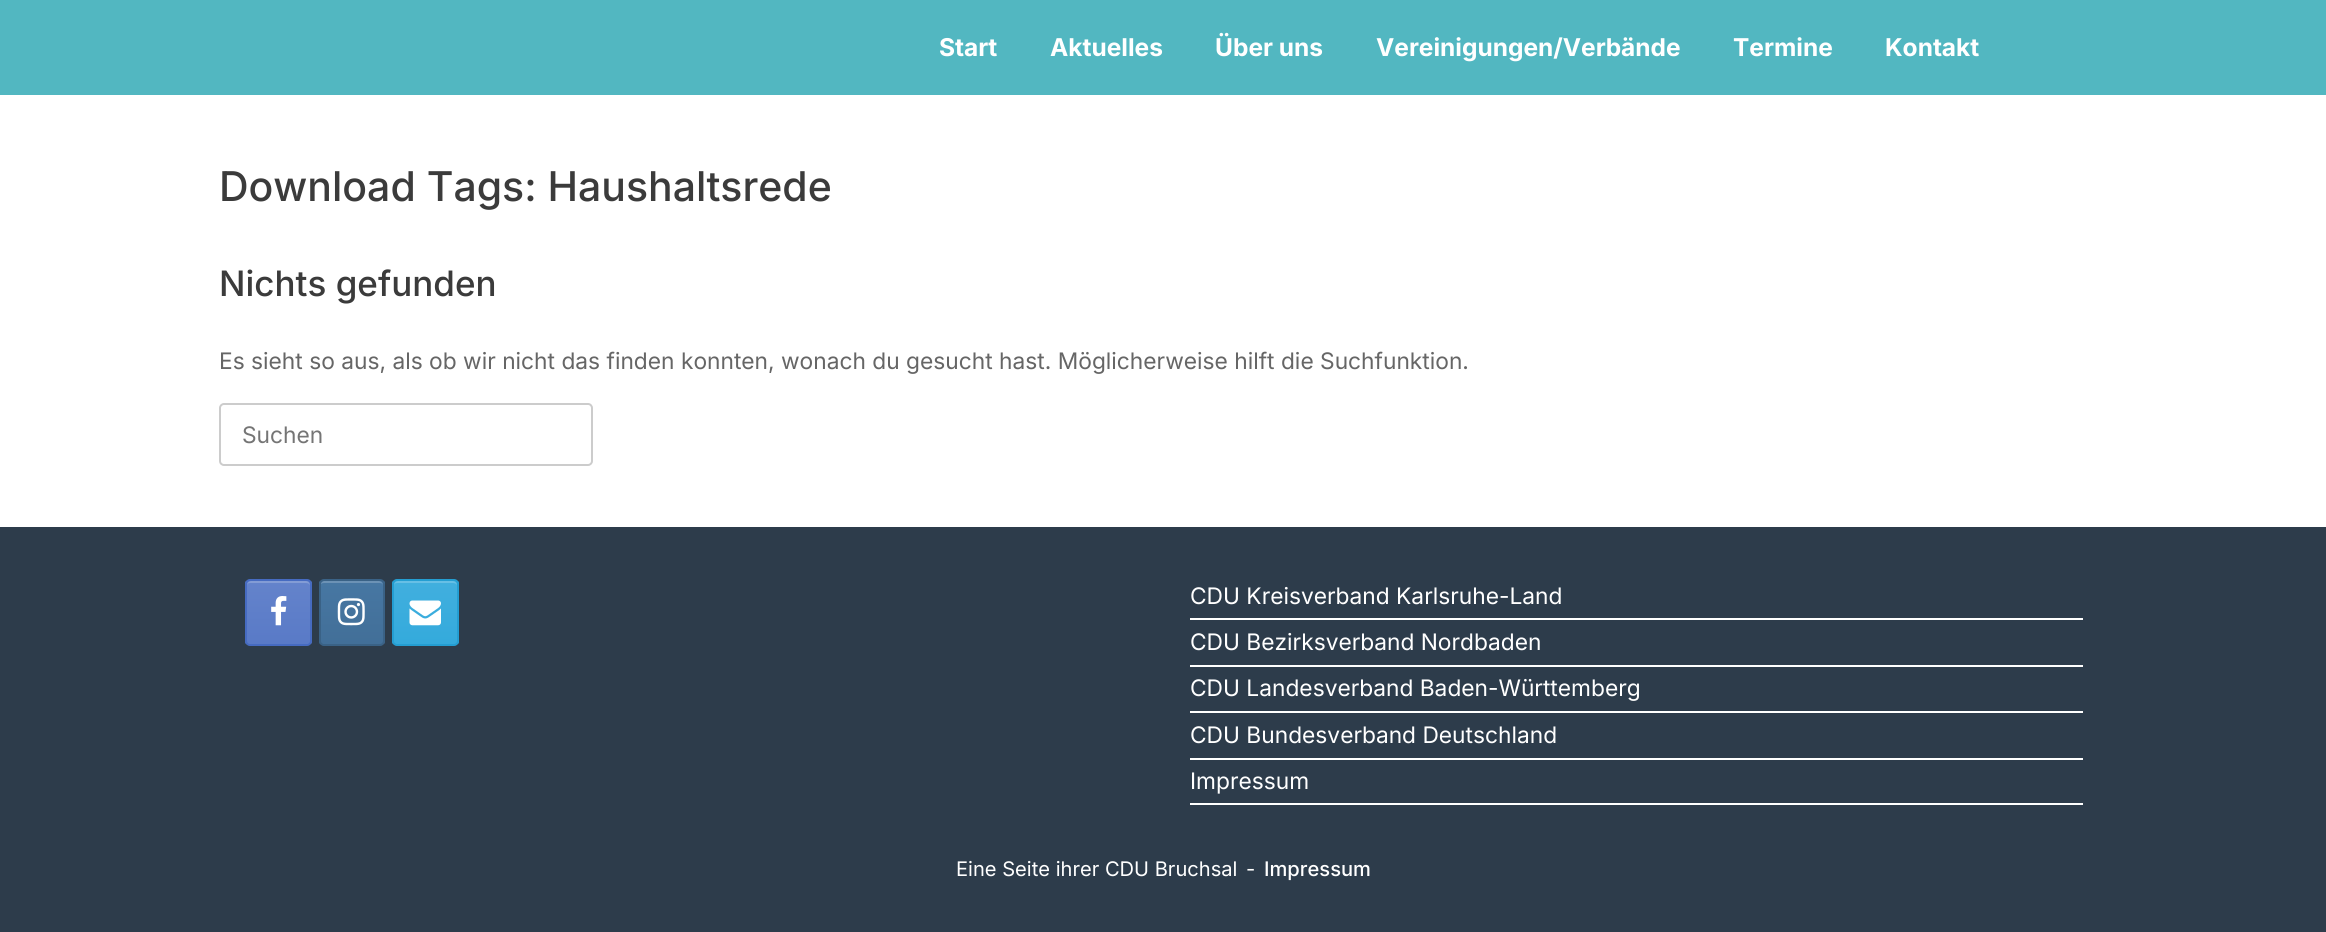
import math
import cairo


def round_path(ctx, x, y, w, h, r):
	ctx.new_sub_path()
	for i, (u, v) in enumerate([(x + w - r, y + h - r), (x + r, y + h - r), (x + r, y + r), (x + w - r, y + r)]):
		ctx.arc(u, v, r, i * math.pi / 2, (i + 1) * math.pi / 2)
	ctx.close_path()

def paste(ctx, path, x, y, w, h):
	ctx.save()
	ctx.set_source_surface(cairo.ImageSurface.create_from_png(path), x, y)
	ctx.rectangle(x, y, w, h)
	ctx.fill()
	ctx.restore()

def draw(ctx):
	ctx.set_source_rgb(0.176, 0.235, 0.294)
	ctx.paint()
	ctx.set_source_rgb(0.322, 0.718, 0.757)
	ctx.rectangle(0, 0, 2326, 95)
	ctx.fill()
	ctx.select_font_face('Inter', cairo.FONT_SLANT_NORMAL, cairo.FONT_WEIGHT_BOLD)
	ctx.set_font_size(24.5)
	ctx.set_source_rgb(1, 1, 1)
	for x, y, s in [
		(939, 56, 'Start'),
		(1050, 56, 'Aktuelles'),
		(1215, 56, 'Über uns'),
		(1376, 56, 'Vereinigungen/Verbände'),
		(1733, 56, 'Termine'),
		(1885, 56, 'Kontakt'),
	]:
		ctx.move_to(x, y)
		ctx.show_text(s)
	ctx.rectangle(0, 95, 2326, 432)
	ctx.fill()
	ctx.select_font_face('Inter Medium')
	ctx.set_font_size(41)
	ctx.set_source_rgb(0.231, 0.231, 0.231)
	ctx.move_to(219, 201)
	ctx.show_text('Download Tags: Haushaltsrede')
	ctx.set_font_size(35)
	ctx.move_to(219, 296)
	ctx.show_text('Nichts gefunden')
	ctx.select_font_face('Inter')
	ctx.set_font_size(22.75)
	ctx.set_source_rgb(0.4, 0.4, 0.4)
	ctx.move_to(219, 369)
	ctx.show_text('Es sieht so aus, als ob wir nicht das finden konnten, wonach du gesucht hast. Möglicherweise hilft die Suchfunktion.')
	round_path(ctx, 220, 404, 372, 61, 4)
	ctx.set_source_rgb(0.8, 0.8, 0.8)
	ctx.stroke()
	ctx.set_source_rgb(0.459, 0.459, 0.459)
	ctx.move_to(242, 443)
	ctx.show_text('Suchen')
	ctx.save()
	round_path(ctx, 245, 579, 67, 67, 5)
	ctx.clip()
	gradient = cairo.LinearGradient(278, 644, 278, 581)
	gradient.add_color_stop_rgba(0, 0.349, 0.478, 0.78, 1)
	gradient.add_color_stop_rgba(1, 0.392, 0.514, 0.796, 1)
	ctx.set_source(gradient)
	ctx.rectangle(245, 581, 67, 63)
	ctx.fill()
	ctx.restore()
	ctx.set_source_rgb(0.514, 0.612, 0.835)
	ctx.new_path()
	ctx.move_to(250, 583)
	ctx.line_to(306, 583)
	ctx.curve_to(308, 583, 310, 584, 310, 586)
	ctx.curve_to(310, 579, 302, 581, 297, 581)
	ctx.line_to(260, 581)
	ctx.curve_to(255, 581, 247, 579, 247, 586)
	ctx.curve_to(247, 584, 248, 583, 250, 583)
	ctx.close_path()
	ctx.fill()
	round_path(ctx, 246, 580, 65, 65, 4)
	ctx.set_source_rgb(0.275, 0.42, 0.757)
	ctx.stroke()
	paste(ctx, 'media/1.png', 271, 596, 16, 30)
	ctx.save()
	round_path(ctx, 319, 579, 66, 67, 5)
	ctx.clip()
	gradient = cairo.LinearGradient(352, 644, 352, 581)
	gradient.add_color_stop_rgba(0, 0.259, 0.435, 0.596, 1)
	gradient.add_color_stop_rgba(1, 0.278, 0.467, 0.639, 1)
	ctx.set_source(gradient)
	ctx.rectangle(319, 581, 66, 63)
	ctx.fill()
	ctx.restore()
	ctx.set_source_rgb(0.424, 0.573, 0.71)
	ctx.new_path()
	ctx.move_to(324, 583)
	ctx.line_to(380, 583)
	ctx.curve_to(382, 583, 383, 584, 383, 586)
	ctx.curve_to(383, 579, 375, 581, 370, 581)
	ctx.line_to(333, 581)
	ctx.curve_to(328, 581, 320, 579, 320, 586)
	ctx.curve_to(320, 584, 322, 583, 324, 583)
	ctx.close_path()
	ctx.fill()
	round_path(ctx, 320, 580, 64, 65, 4)
	ctx.set_source_rgb(0.227, 0.384, 0.525)
	ctx.stroke()
	paste(ctx, 'media/2.png', 337, 598, 28, 28)
	ctx.save()
	round_path(ctx, 392, 579, 67, 67, 5)
	ctx.clip()
	gradient = cairo.LinearGradient(425, 644, 425, 581)
	gradient.add_color_stop_rgba(0, 0.204, 0.667, 0.863, 1)
	gradient.add_color_stop_rgba(1, 0.255, 0.686, 0.871, 1)
	ctx.set_source(gradient)
	ctx.rectangle(392, 581, 67, 63)
	ctx.fill()
	ctx.restore()
	ctx.set_source_rgb(0.404, 0.749, 0.898)
	ctx.new_path()
	ctx.move_to(397, 583)
	ctx.line_to(453, 583)
	ctx.curve_to(455, 583, 457, 584, 457, 586)
	ctx.curve_to(457, 579, 449, 581, 444, 581)
	ctx.line_to(407, 581)
	ctx.curve_to(402, 581, 394, 579, 394, 586)
	ctx.curve_to(394, 584, 395, 583, 397, 583)
	ctx.close_path()
	ctx.fill()
	round_path(ctx, 393, 580, 65, 65, 4)
	ctx.set_source_rgb(0.141, 0.62, 0.824)
	ctx.stroke()
	paste(ctx, 'media/3.png', 409, 600, 32, 26)
	ctx.set_source_rgb(1, 1, 1)
	ctx.rectangle(1190, 618, 893, 2)
	ctx.fill()
	ctx.move_to(1190, 604)
	ctx.show_text('CDU Kreisverband Karlsruhe-Land')
	ctx.rectangle(1190, 665, 893, 2)
	ctx.fill()
	ctx.move_to(1190, 650)
	ctx.show_text('CDU Bezirksverband Nordbaden')
	ctx.rectangle(1190, 711, 893, 2)
	ctx.fill()
	ctx.move_to(1190, 696)
	ctx.show_text('CDU Landesverband Baden-Württemberg')
	ctx.rectangle(1190, 758, 893, 2)
	ctx.fill()
	ctx.move_to(1190, 743)
	ctx.show_text('CDU Bundesverband Deutschland')
	ctx.rectangle(1190, 803, 893, 2)
	ctx.fill()
	ctx.move_to(1190, 789)
	ctx.show_text('Impressum')
	ctx.set_font_size(20.1)
	ctx.move_to(956, 876)
	ctx.show_text('Eine Seite ihrer CDU Bruchsal')
	ctx.move_to(1246, 876)
	ctx.show_text('-')
	ctx.select_font_face('Inter Medium')
	ctx.move_to(1264, 876)
	ctx.show_text('Impressum')


surface = cairo.ImageSurface(cairo.FORMAT_RGB24, 2326, 932)
ctx = cairo.Context(surface)
options = cairo.FontOptions()
options.set_hint_metrics(cairo.HINT_METRICS_OFF)
options.set_hint_style(cairo.HINT_STYLE_NONE)
ctx.set_font_options(options)
ctx.set_miter_limit(4)
draw(ctx)
surface.write_to_png('image.png')
